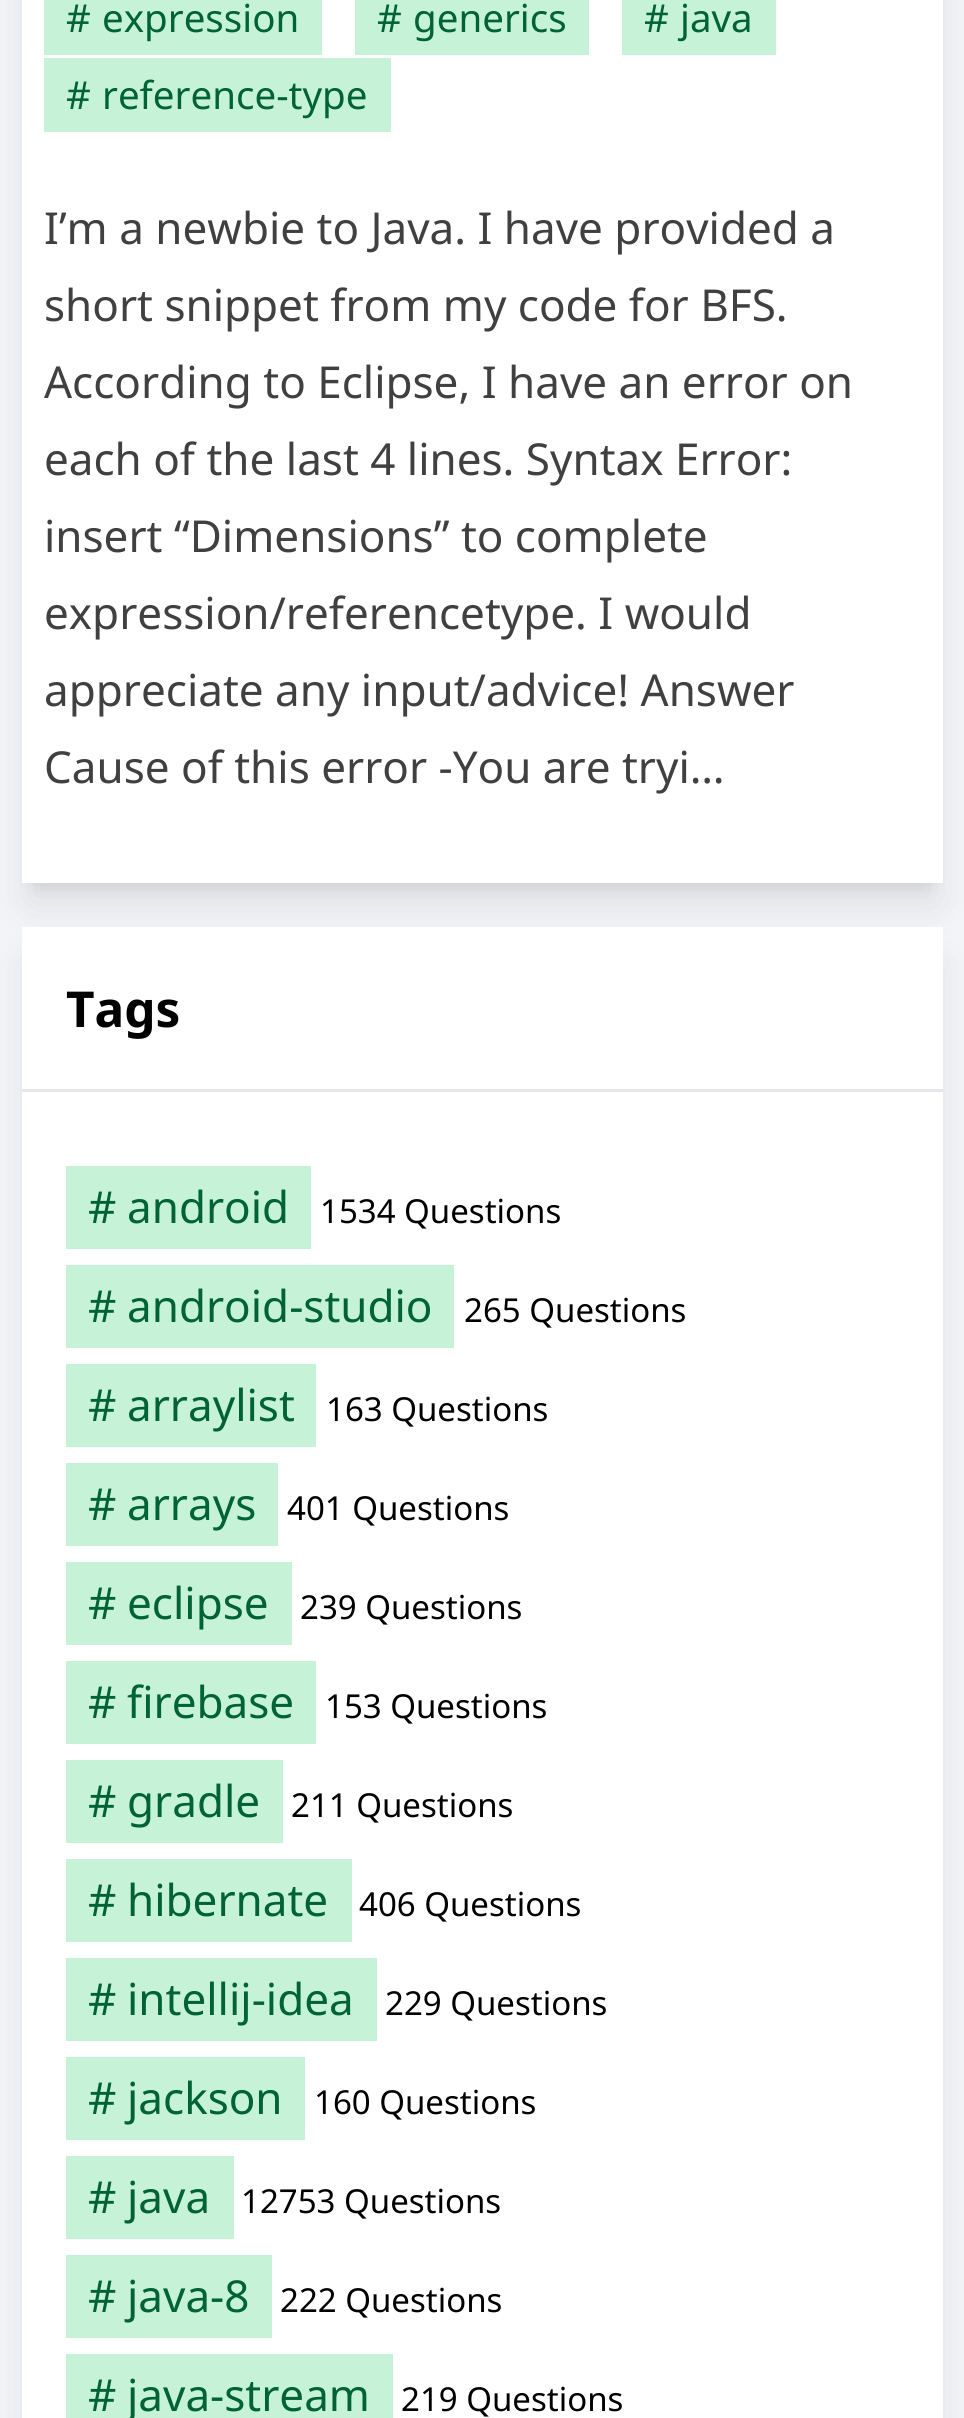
import math
import cairo


def round_path(ctx, x, y, w, h, r):
	ctx.new_sub_path()
	for i, (u, v) in enumerate([(x + w - r, y + h - r), (x + r, y + h - r), (x + r, y + r), (x + w - r, y + r)]):
		ctx.arc(u, v, r, i * math.pi / 2, (i + 1) * math.pi / 2)
	ctx.close_path()

def blur_box(ctx, x, y, w, h, r, blur, alpha):
	ctx.push_group_with_content(cairo.CONTENT_ALPHA)
	ctx.set_operator(cairo.OPERATOR_SOURCE)
	for i in range(15, -16, -2):
		e = blur * i / 6
		if min(w, h) + 2 * e > 0:
			ctx.set_source_rgba(0, 0, 0, alpha * math.erfc((i - 1) / 8.5) / 2)
			round_path(ctx, x - e, y - e, w + 2 * e, h + 2 * e, max(0, min(r + e + blur * .6, min(w, h) / 2 + e)))
			ctx.fill()
	ctx.mask(ctx.pop_group())

def draw(ctx):
	ctx.set_source_rgb(0.953, 0.957, 0.965)
	ctx.paint()
	ctx.set_source_rgb(0, 0, 0)
	blur_box(ctx, 33, -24, 899, 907, 0, 8, 0.1)
	blur_box(ctx, 30, -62, 905, 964, 0, 20.5, 0.1)
	ctx.set_source_rgb(1, 1, 1)
	ctx.rectangle(22, 0, 921, 883)
	ctx.fill()
	ctx.set_source_rgb(0.776, 0.953, 0.847)
	ctx.rectangle(44, 0, 278, 55)
	ctx.fill()
	ctx.select_font_face('Noto Sans')
	ctx.set_font_size(38.5)
	ctx.set_source_rgb(0, 0.388, 0.212)
	ctx.move_to(66, 32)
	ctx.show_text('#')
	ctx.move_to(102, 32)
	ctx.show_text('expression')
	ctx.set_source_rgb(0.776, 0.953, 0.847)
	ctx.rectangle(355, 0, 234, 55)
	ctx.fill()
	ctx.set_source_rgb(0, 0.388, 0.212)
	ctx.move_to(377, 32)
	ctx.show_text('#')
	ctx.move_to(413, 32)
	ctx.show_text('generics')
	ctx.set_source_rgb(0.776, 0.953, 0.847)
	ctx.rectangle(622, 0, 154, 55)
	ctx.fill()
	ctx.set_source_rgb(0, 0.388, 0.212)
	ctx.move_to(644, 32)
	ctx.show_text('#')
	ctx.move_to(680, 32)
	ctx.show_text('java')
	ctx.set_source_rgb(0.776, 0.953, 0.847)
	ctx.rectangle(44, 58, 347, 74)
	ctx.fill()
	ctx.set_source_rgb(0, 0.388, 0.212)
	ctx.move_to(66, 109)
	ctx.show_text('#')
	ctx.move_to(102, 109)
	ctx.show_text('reference-type')
	ctx.set_font_size(44)
	ctx.set_source_rgb(0.251, 0.251, 0.251)
	for x, y, s in [
		(44, 244, 'I’m a newbie to Java. I have provided a'),
		(44, 321, 'short snippet from my code for BFS.'),
		(44, 398, 'According to Eclipse, I have an error on'),
		(44, 475, 'each of the last 4 lines. Syntax Error:'),
		(44, 552, 'insert “Dimensions” to complete'),
		(44, 629, 'expression/referencetype. I would'),
		(44, 706, 'appreciate any input/advice! Answer'),
		(44, 783, 'Cause of this error -You are tryi…'),
	]:
		ctx.move_to(x, y)
		ctx.show_text(s)
	ctx.set_source_rgb(0, 0, 0)
	blur_box(ctx, 30, 963, 905, 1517, 0, 20.5, 0.1)
	ctx.set_source_rgb(1, 1, 1)
	ctx.rectangle(22, 927, 921, 1491)
	ctx.fill()
	ctx.select_font_face('Noto Sans', cairo.FONT_SLANT_NORMAL, cairo.FONT_WEIGHT_BOLD)
	ctx.set_font_size(49.5)
	ctx.set_source_rgb(0, 0, 0)
	ctx.move_to(66, 1027)
	ctx.show_text('Tags')
	ctx.set_source_rgb(0.898, 0.906, 0.922)
	ctx.rectangle(22, 1089, 921, 3)
	ctx.fill()
	ctx.set_source_rgb(0.776, 0.953, 0.847)
	ctx.rectangle(66, 1166, 245, 83)
	ctx.fill()
	ctx.select_font_face('Noto Sans')
	ctx.set_font_size(44)
	ctx.set_source_rgb(0, 0.388, 0.212)
	ctx.move_to(88, 1223)
	ctx.show_text('#')
	ctx.move_to(127, 1223)
	ctx.show_text('android')
	ctx.set_font_size(33)
	ctx.set_source_rgb(0, 0, 0)
	ctx.move_to(320, 1223)
	ctx.show_text('1534 Questions')
	ctx.set_source_rgb(0.776, 0.953, 0.847)
	ctx.rectangle(66, 1265, 388, 83)
	ctx.fill()
	ctx.set_font_size(44)
	ctx.set_source_rgb(0, 0.388, 0.212)
	ctx.move_to(88, 1322)
	ctx.show_text('#')
	ctx.move_to(127, 1322)
	ctx.show_text('android-studio')
	ctx.set_font_size(33)
	ctx.set_source_rgb(0, 0, 0)
	ctx.move_to(464, 1322)
	ctx.show_text('265 Questions')
	ctx.set_source_rgb(0.776, 0.953, 0.847)
	ctx.rectangle(66, 1364, 250, 83)
	ctx.fill()
	ctx.set_font_size(44)
	ctx.set_source_rgb(0, 0.388, 0.212)
	ctx.move_to(88, 1421)
	ctx.show_text('#')
	ctx.move_to(127, 1421)
	ctx.show_text('arraylist')
	ctx.set_font_size(33)
	ctx.set_source_rgb(0, 0, 0)
	ctx.move_to(326, 1421)
	ctx.show_text('163 Questions')
	ctx.set_source_rgb(0.776, 0.953, 0.847)
	ctx.rectangle(66, 1463, 212, 83)
	ctx.fill()
	ctx.set_font_size(44)
	ctx.set_source_rgb(0, 0.388, 0.212)
	ctx.move_to(88, 1520)
	ctx.show_text('#')
	ctx.move_to(127, 1520)
	ctx.show_text('arrays')
	ctx.set_font_size(33)
	ctx.set_source_rgb(0, 0, 0)
	ctx.move_to(287, 1520)
	ctx.show_text('401 Questions')
	ctx.set_source_rgb(0.776, 0.953, 0.847)
	ctx.rectangle(66, 1562, 226, 83)
	ctx.fill()
	ctx.set_font_size(44)
	ctx.set_source_rgb(0, 0.388, 0.212)
	ctx.move_to(88, 1619)
	ctx.show_text('#')
	ctx.move_to(127, 1619)
	ctx.show_text('eclipse')
	ctx.set_font_size(33)
	ctx.set_source_rgb(0, 0, 0)
	ctx.move_to(300, 1619)
	ctx.show_text('239 Questions')
	ctx.set_source_rgb(0.776, 0.953, 0.847)
	ctx.rectangle(66, 1661, 250, 83)
	ctx.fill()
	ctx.set_font_size(44)
	ctx.set_source_rgb(0, 0.388, 0.212)
	ctx.move_to(88, 1718)
	ctx.show_text('#')
	ctx.move_to(127, 1718)
	ctx.show_text('firebase')
	ctx.set_font_size(33)
	ctx.set_source_rgb(0, 0, 0)
	ctx.move_to(325, 1718)
	ctx.show_text('153 Questions')
	ctx.set_source_rgb(0.776, 0.953, 0.847)
	ctx.rectangle(66, 1760, 217, 83)
	ctx.fill()
	ctx.set_font_size(44)
	ctx.set_source_rgb(0, 0.388, 0.212)
	ctx.move_to(88, 1817)
	ctx.show_text('#')
	ctx.move_to(127, 1817)
	ctx.show_text('gradle')
	ctx.set_font_size(33)
	ctx.set_source_rgb(0, 0, 0)
	ctx.move_to(291, 1817)
	ctx.show_text('211 Questions')
	ctx.set_source_rgb(0.776, 0.953, 0.847)
	ctx.rectangle(66, 1859, 286, 83)
	ctx.fill()
	ctx.set_font_size(44)
	ctx.set_source_rgb(0, 0.388, 0.212)
	ctx.move_to(88, 1916)
	ctx.show_text('#')
	ctx.move_to(127, 1916)
	ctx.show_text('hibernate')
	ctx.set_font_size(33)
	ctx.set_source_rgb(0, 0, 0)
	ctx.move_to(359, 1916)
	ctx.show_text('406 Questions')
	ctx.set_source_rgb(0.776, 0.953, 0.847)
	ctx.rectangle(66, 1958, 311, 83)
	ctx.fill()
	ctx.set_font_size(44)
	ctx.set_source_rgb(0, 0.388, 0.212)
	ctx.move_to(88, 2015)
	ctx.show_text('#')
	ctx.move_to(127, 2015)
	ctx.show_text('intellij-idea')
	ctx.set_font_size(33)
	ctx.set_source_rgb(0, 0, 0)
	ctx.move_to(385, 2015)
	ctx.show_text('229 Questions')
	ctx.set_source_rgb(0.776, 0.953, 0.847)
	ctx.rectangle(66, 2057, 239, 83)
	ctx.fill()
	ctx.set_font_size(44)
	ctx.set_source_rgb(0, 0.388, 0.212)
	ctx.move_to(88, 2114)
	ctx.show_text('#')
	ctx.move_to(127, 2114)
	ctx.show_text('jackson')
	ctx.set_font_size(33)
	ctx.set_source_rgb(0, 0, 0)
	ctx.move_to(314, 2114)
	ctx.show_text('160 Questions')
	ctx.set_source_rgb(0.776, 0.953, 0.847)
	ctx.rectangle(66, 2156, 168, 83)
	ctx.fill()
	ctx.set_font_size(44)
	ctx.set_source_rgb(0, 0.388, 0.212)
	ctx.move_to(88, 2213)
	ctx.show_text('#')
	ctx.move_to(127, 2213)
	ctx.show_text('java')
	ctx.set_font_size(33)
	ctx.set_source_rgb(0, 0, 0)
	ctx.move_to(241, 2213)
	ctx.show_text('12753 Questions')
	ctx.set_source_rgb(0.776, 0.953, 0.847)
	ctx.rectangle(66, 2255, 206, 83)
	ctx.fill()
	ctx.set_font_size(44)
	ctx.set_source_rgb(0, 0.388, 0.212)
	ctx.move_to(88, 2312)
	ctx.show_text('#')
	ctx.move_to(127, 2312)
	ctx.show_text('java-8')
	ctx.set_font_size(33)
	ctx.set_source_rgb(0, 0, 0)
	ctx.move_to(280, 2312)
	ctx.show_text('222 Questions')
	ctx.set_source_rgb(0.776, 0.953, 0.847)
	ctx.rectangle(66, 2354, 327, 64)
	ctx.fill()
	ctx.set_font_size(44)
	ctx.set_source_rgb(0, 0.388, 0.212)
	ctx.move_to(88, 2411)
	ctx.show_text('#')
	ctx.move_to(127, 2411)
	ctx.show_text('java-stream')
	ctx.set_font_size(33)
	ctx.set_source_rgb(0, 0, 0)
	ctx.move_to(401, 2411)
	ctx.show_text('219 Questions')


surface = cairo.ImageSurface(cairo.FORMAT_RGB24, 964, 2418)
ctx = cairo.Context(surface)
options = cairo.FontOptions()
options.set_hint_metrics(cairo.HINT_METRICS_OFF)
options.set_hint_style(cairo.HINT_STYLE_NONE)
ctx.set_font_options(options)
ctx.set_miter_limit(4)
draw(ctx)
surface.write_to_png('image.png')
